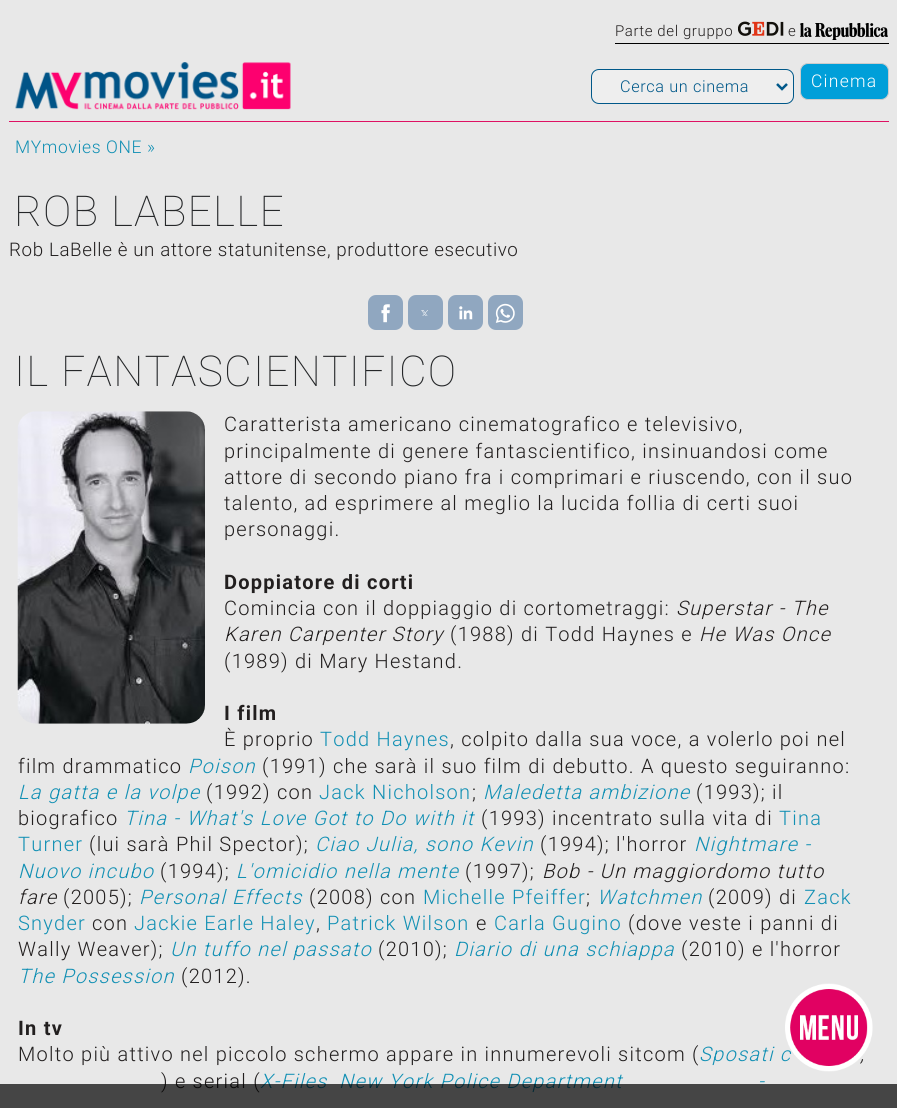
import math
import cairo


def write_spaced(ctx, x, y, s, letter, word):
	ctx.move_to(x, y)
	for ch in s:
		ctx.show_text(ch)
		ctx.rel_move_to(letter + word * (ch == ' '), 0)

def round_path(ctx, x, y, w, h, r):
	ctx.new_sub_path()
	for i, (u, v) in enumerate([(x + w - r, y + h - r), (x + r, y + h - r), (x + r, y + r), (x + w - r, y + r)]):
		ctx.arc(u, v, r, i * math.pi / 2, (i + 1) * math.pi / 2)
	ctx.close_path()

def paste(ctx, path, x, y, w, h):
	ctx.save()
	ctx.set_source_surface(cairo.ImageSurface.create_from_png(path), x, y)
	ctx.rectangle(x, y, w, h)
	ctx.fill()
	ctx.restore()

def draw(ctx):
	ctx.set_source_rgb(0.91, 0.91, 0.91)
	ctx.paint()
	ctx.set_source_rgb(0, 0, 0)
	ctx.rectangle(615, 43, 274, 1)
	ctx.fill()
	ctx.select_font_face('Roboto Light')
	ctx.set_font_size(15)
	ctx.set_source_rgb(0.133, 0.122, 0.122)
	write_spaced(ctx, 615, 36, 'Parte del gruppo', 0.62, 0)
	paste(ctx, 'media/1.png', 738, 21, 46, 15)
	write_spaced(ctx, 788, 36, 'e', 0.62, 0)
	paste(ctx, 'media/2.png', 800, 23, 88, 17)
	paste(ctx, 'media/3.png', 15, 62, 276, 48)
	ctx.set_source_rgb(0.933, 0.933, 0.933)
	round_path(ctx, 591.5, 69.5, 202, 34, 7.5)
	ctx.fill_preserve()
	ctx.set_source_rgb(0, 0.345, 0.537)
	ctx.set_line_width(1)
	ctx.stroke()
	ctx.new_path()
	ctx.move_to(777, 84)
	ctx.line_to(782, 89)
	ctx.line_to(787, 84)
	ctx.set_line_width(2.5)
	ctx.stroke()
	ctx.set_font_size(16.25)
	write_spaced(ctx, 620, 92, 'Cerca un cinema', 0.62, 0)
	ctx.set_source_rgb(0, 0.624, 0.851)
	round_path(ctx, 800.5, 63.5, 88, 36, 7.5)
	ctx.fill_preserve()
	ctx.set_source_rgb(0.8, 0.8, 0.8)
	ctx.set_line_width(1)
	ctx.stroke()
	ctx.set_font_size(17.5)
	ctx.set_source_rgb(1, 1, 1)
	write_spaced(ctx, 811, 87, 'Cinema', 1.25, 0)
	ctx.set_source_rgb(0.871, 0.067, 0.388)
	ctx.rectangle(9, 121, 880, 1)
	ctx.fill()
	ctx.set_source_rgb(0.071, 0.565, 0.706)
	write_spaced(ctx, 15, 153, 'MYmovies ONE »', 0.62, 0)
	ctx.select_font_face('Roboto Thin')
	ctx.set_font_size(42.5)
	ctx.set_source_rgb(0.145, 0.153, 0.161)
	write_spaced(ctx, 14, 226, 'ROB LABELLE', 1.25, 0)
	ctx.select_font_face('Roboto Light')
	ctx.set_font_size(18.75)
	ctx.set_source_rgb(0.133, 0.122, 0.122)
	write_spaced(ctx, 9, 256, 'Rob LaBelle è un attore statunitense, produttore esecutivo', 0.62, 0)
	ctx.set_source_rgb(0.565, 0.655, 0.753)
	round_path(ctx, 368, 295, 35, 35, 8)
	ctx.fill()
	paste(ctx, 'media/4.png', 381, 304, 9, 19)
	round_path(ctx, 408, 295, 35, 35, 8)
	ctx.fill()
	paste(ctx, 'media/5.png', 421, 310, 7, 6)
	round_path(ctx, 448, 295, 35, 35, 8)
	ctx.fill()
	paste(ctx, 'media/6.png', 459, 306, 14, 14)
	round_path(ctx, 488, 295, 35, 35, 8)
	ctx.fill()
	paste(ctx, 'media/7.png', 495, 303, 20, 20)
	ctx.select_font_face('Roboto Thin')
	ctx.set_font_size(42.5)
	ctx.set_source_rgb(0.145, 0.153, 0.161)
	write_spaced(ctx, 14, 386, 'IL FANTASCIENTIFICO', 1.25, 0)
	paste(ctx, 'media/8.png', 17, 411, 188, 313)
	ctx.select_font_face('Roboto Light')
	ctx.set_font_size(20)
	ctx.set_source_rgb(0.133, 0.122, 0.122)
	for x, y, s in [
		(224, 431, 'Caratterista americano cinematografico e televisivo,'),
		(224, 458, 'principalmente di genere fantascientifico, insinuandosi come'),
		(224, 484, 'attore di secondo piano fra i comprimari e riuscendo, con il suo'),
		(224, 510, 'talento, ad esprimere al meglio la lucida follia di certi suoi'),
		(224, 536, 'personaggi.'),
	]:
		write_spaced(ctx, x, y, s, 1.25, 0)
	ctx.select_font_face('Roboto', cairo.FONT_SLANT_NORMAL, cairo.FONT_WEIGHT_BOLD)
	write_spaced(ctx, 224, 589, 'Doppiatore di corti', 1.25, 0)
	ctx.select_font_face('Roboto Light')
	write_spaced(ctx, 224, 615, 'Comincia con il doppiaggio di cortometraggi:', 1.25, 0)
	ctx.select_font_face('Roboto Light', cairo.FONT_SLANT_ITALIC)
	write_spaced(ctx, 676, 615, 'Superstar - The', 1.25, 0)
	write_spaced(ctx, 224, 641, 'Karen Carpenter Story', 1.25, 0)
	ctx.select_font_face('Roboto Light')
	write_spaced(ctx, 450, 641, '(1988) di Todd Haynes e', 1.25, 0)
	ctx.select_font_face('Roboto Light', cairo.FONT_SLANT_ITALIC)
	write_spaced(ctx, 699, 641, 'He Was Once', 1.25, 0)
	ctx.select_font_face('Roboto Light')
	write_spaced(ctx, 224, 668, '(1989) di Mary Hestand.', 1.25, 0)
	ctx.select_font_face('Roboto', cairo.FONT_SLANT_NORMAL, cairo.FONT_WEIGHT_BOLD)
	write_spaced(ctx, 224, 720, 'I film', 1.25, 0)
	ctx.select_font_face('Roboto Light')
	write_spaced(ctx, 224, 746, 'È proprio', 1.25, 0)
	ctx.set_source_rgb(0.071, 0.565, 0.706)
	write_spaced(ctx, 320, 746, 'Todd Haynes', 1.25, 0)
	ctx.set_source_rgb(0.133, 0.122, 0.122)
	write_spaced(ctx, 450, 746, ', colpito dalla sua voce, a volerlo poi nel', 1.25, 0)
	write_spaced(ctx, 18, 773, 'film drammatico', 1.25, 0)
	ctx.select_font_face('Roboto Light', cairo.FONT_SLANT_ITALIC)
	ctx.set_source_rgb(0.071, 0.565, 0.706)
	write_spaced(ctx, 188, 773, 'Poison', 1.25, 0)
	ctx.select_font_face('Roboto Light')
	ctx.set_source_rgb(0.133, 0.122, 0.122)
	write_spaced(ctx, 262, 773, '(1991) che sarà il suo film di debutto. A questo seguiranno:', 1.25, 0)
	ctx.select_font_face('Roboto Light', cairo.FONT_SLANT_ITALIC)
	ctx.set_source_rgb(0.071, 0.565, 0.706)
	write_spaced(ctx, 18, 799, 'La gatta e la volpe', 1.25, 0)
	ctx.select_font_face('Roboto Light')
	ctx.set_source_rgb(0.133, 0.122, 0.122)
	write_spaced(ctx, 206, 799, '(1992) con', 1.25, 0)
	ctx.set_source_rgb(0.071, 0.565, 0.706)
	write_spaced(ctx, 319, 799, 'Jack Nicholson', 1.25, 0)
	ctx.set_source_rgb(0.133, 0.122, 0.122)
	write_spaced(ctx, 472, 799, ';', 1.25, 0)
	ctx.select_font_face('Roboto Light', cairo.FONT_SLANT_ITALIC)
	ctx.set_source_rgb(0.071, 0.565, 0.706)
	write_spaced(ctx, 483, 799, 'Maledetta ambizione', 1.25, 0)
	ctx.select_font_face('Roboto Light')
	ctx.set_source_rgb(0.133, 0.122, 0.122)
	write_spaced(ctx, 696, 799, '(1993); il', 1.25, 0)
	write_spaced(ctx, 18, 825, 'biografico', 1.25, 0)
	ctx.select_font_face('Roboto Light', cairo.FONT_SLANT_ITALIC)
	ctx.set_source_rgb(0.071, 0.565, 0.706)
	write_spaced(ctx, 124, 825, 'Tina - What\'s Love Got to Do with it', 1.25, 0)
	ctx.select_font_face('Roboto Light')
	ctx.set_source_rgb(0.133, 0.122, 0.122)
	write_spaced(ctx, 481, 825, '(1993) incentrato sulla vita di', 1.25, 0)
	ctx.set_source_rgb(0.071, 0.565, 0.706)
	write_spaced(ctx, 779, 825, 'Tina', 1.25, 0)
	write_spaced(ctx, 18, 851, 'Turner', 1.25, 0)
	ctx.set_source_rgb(0.133, 0.122, 0.122)
	write_spaced(ctx, 89, 851, '(lui sarà Phil Spector);', 1.25, 0)
	ctx.select_font_face('Roboto Light', cairo.FONT_SLANT_ITALIC)
	ctx.set_source_rgb(0.071, 0.565, 0.706)
	write_spaced(ctx, 315, 851, 'Ciao Julia, sono Kevin', 1.25, 0)
	ctx.select_font_face('Roboto Light')
	ctx.set_source_rgb(0.133, 0.122, 0.122)
	write_spaced(ctx, 540, 851, '(1994); l\'horror', 1.25, 0)
	ctx.select_font_face('Roboto Light', cairo.FONT_SLANT_ITALIC)
	ctx.set_source_rgb(0.071, 0.565, 0.706)
	write_spaced(ctx, 694, 851, 'Nightmare -', 1.25, 0)
	write_spaced(ctx, 18, 878, 'Nuovo incubo', 1.25, 0)
	ctx.select_font_face('Roboto Light')
	ctx.set_source_rgb(0.133, 0.122, 0.122)
	write_spaced(ctx, 160, 878, '(1994);', 1.25, 0)
	ctx.select_font_face('Roboto Light', cairo.FONT_SLANT_ITALIC)
	ctx.set_source_rgb(0.071, 0.565, 0.706)
	write_spaced(ctx, 236, 878, 'L\'omicidio nella mente', 1.25, 0)
	ctx.select_font_face('Roboto Light')
	ctx.set_source_rgb(0.133, 0.122, 0.122)
	write_spaced(ctx, 465, 878, '(1997);', 1.25, 0)
	ctx.select_font_face('Roboto Light', cairo.FONT_SLANT_ITALIC)
	write_spaced(ctx, 542, 878, 'Bob - Un maggiordomo tutto', 1.25, 0)
	write_spaced(ctx, 18, 904, 'fare', 1.25, 0)
	ctx.select_font_face('Roboto Light')
	write_spaced(ctx, 63, 904, '(2005);', 1.25, 0)
	ctx.select_font_face('Roboto Light', cairo.FONT_SLANT_ITALIC)
	ctx.set_source_rgb(0.071, 0.565, 0.706)
	write_spaced(ctx, 139, 904, 'Personal Effects', 1.25, 0)
	ctx.select_font_face('Roboto Light')
	ctx.set_source_rgb(0.133, 0.122, 0.122)
	write_spaced(ctx, 309, 904, '(2008) con', 1.25, 0)
	ctx.set_source_rgb(0.071, 0.565, 0.706)
	write_spaced(ctx, 423, 904, 'Michelle Pfeiffer', 1.25, 0)
	ctx.set_source_rgb(0.133, 0.122, 0.122)
	write_spaced(ctx, 586, 904, ';', 1.25, 0)
	ctx.select_font_face('Roboto Light', cairo.FONT_SLANT_ITALIC)
	ctx.set_source_rgb(0.071, 0.565, 0.706)
	write_spaced(ctx, 597, 904, 'Watchmen', 1.25, 0)
	ctx.select_font_face('Roboto Light')
	ctx.set_source_rgb(0.133, 0.122, 0.122)
	write_spaced(ctx, 708, 904, '(2009) di', 1.25, 0)
	ctx.set_source_rgb(0.071, 0.565, 0.706)
	write_spaced(ctx, 804, 904, 'Zack', 1.25, 0)
	write_spaced(ctx, 18, 930, 'Snyder', 1.25, 0)
	ctx.set_source_rgb(0.133, 0.122, 0.122)
	write_spaced(ctx, 92, 930, 'con', 1.25, 0)
	ctx.set_source_rgb(0.071, 0.565, 0.706)
	write_spaced(ctx, 134, 930, 'Jackie Earle Haley', 1.25, 0)
	ctx.set_source_rgb(0.133, 0.122, 0.122)
	write_spaced(ctx, 316, 930, ',', 1.25, 0)
	ctx.set_source_rgb(0.071, 0.565, 0.706)
	write_spaced(ctx, 327, 930, 'Patrick Wilson', 1.25, 0)
	ctx.set_source_rgb(0.133, 0.122, 0.122)
	write_spaced(ctx, 476, 930, 'e', 1.25, 0)
	ctx.set_source_rgb(0.071, 0.565, 0.706)
	write_spaced(ctx, 494, 930, 'Carla Gugino', 1.25, 0)
	ctx.set_source_rgb(0.133, 0.122, 0.122)
	write_spaced(ctx, 628, 930, '(dove veste i panni di', 1.25, 0)
	write_spaced(ctx, 18, 956, 'Wally Weaver);', 1.25, 0)
	ctx.select_font_face('Roboto Light', cairo.FONT_SLANT_ITALIC)
	ctx.set_source_rgb(0.071, 0.565, 0.706)
	write_spaced(ctx, 170, 956, 'Un tuffo nel passato', 1.25, 0)
	ctx.select_font_face('Roboto Light')
	ctx.set_source_rgb(0.133, 0.122, 0.122)
	write_spaced(ctx, 378, 956, '(2010);', 1.25, 0)
	ctx.select_font_face('Roboto Light', cairo.FONT_SLANT_ITALIC)
	ctx.set_source_rgb(0.071, 0.565, 0.706)
	write_spaced(ctx, 454, 956, 'Diario di una schiappa', 1.25, 0)
	ctx.select_font_face('Roboto Light')
	ctx.set_source_rgb(0.133, 0.122, 0.122)
	write_spaced(ctx, 681, 956, '(2010) e l\'horror', 1.25, 0)
	ctx.select_font_face('Roboto Light', cairo.FONT_SLANT_ITALIC)
	ctx.set_source_rgb(0.071, 0.565, 0.706)
	write_spaced(ctx, 18, 983, 'The Possession', 1.25, 0)
	ctx.select_font_face('Roboto Light')
	ctx.set_source_rgb(0.133, 0.122, 0.122)
	write_spaced(ctx, 181, 983, '(2012).', 1.25, 0)
	ctx.select_font_face('Roboto', cairo.FONT_SLANT_NORMAL, cairo.FONT_WEIGHT_BOLD)
	write_spaced(ctx, 18, 1035, 'In tv', 1.25, 0)
	ctx.select_font_face('Roboto Light')
	write_spaced(ctx, 18, 1061, 'Molto più attivo nel piccolo schermo appare in innumerevoli sitcom (', 1.25, 0)
	ctx.select_font_face('Roboto Light', cairo.FONT_SLANT_ITALIC)
	ctx.set_source_rgb(0.071, 0.565, 0.706)
	write_spaced(ctx, 699, 1061, 'Sposati c', 1.25, 0)
	ctx.set_source_rgb(0.133, 0.122, 0.122)
	write_spaced(ctx, 860, 1061, ',', 1.25, 0)
	ctx.select_font_face('Roboto Light')
	write_spaced(ctx, 161, 1088, ') e serial (', 1.25, 0)
	ctx.select_font_face('Roboto Light', cairo.FONT_SLANT_ITALIC)
	ctx.set_source_rgb(0.071, 0.565, 0.706)
	for x, y, s in [
		(260, 1088, 'X-Files'),
		(339, 1088, 'New York Police Department'),
		(758, 1088, '-'),
	]:
		write_spaced(ctx, x, y, s, 1.25, 0)
	paste(ctx, 'media/9.png', 785, 983, 88, 89)
	ctx.set_source_rgba(0, 0, 0, 0.7)
	ctx.rectangle(0, 1084, 897, 24)
	ctx.fill()


surface = cairo.ImageSurface(cairo.FORMAT_RGB24, 897, 1108)
ctx = cairo.Context(surface)
options = cairo.FontOptions()
options.set_hint_metrics(cairo.HINT_METRICS_OFF)
options.set_hint_style(cairo.HINT_STYLE_NONE)
ctx.set_font_options(options)
ctx.set_miter_limit(4)
draw(ctx)
surface.write_to_png('image.png')
